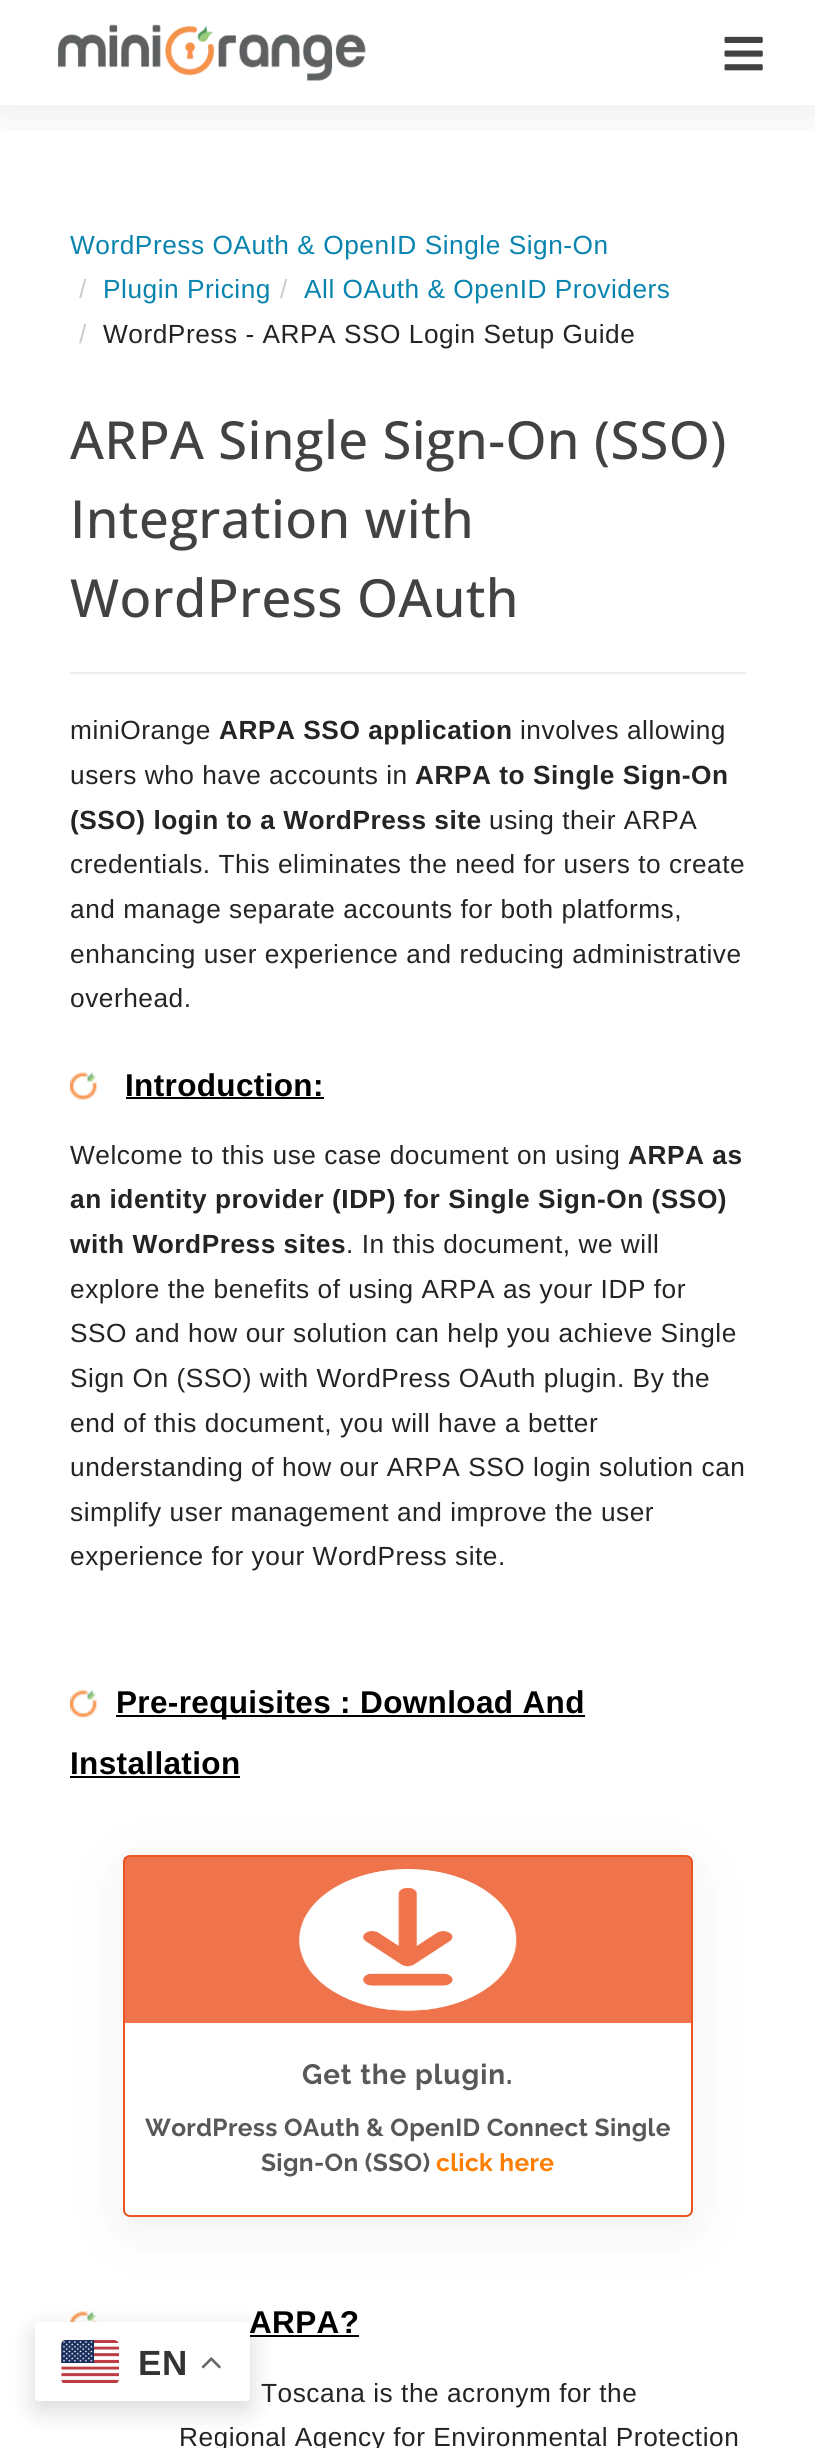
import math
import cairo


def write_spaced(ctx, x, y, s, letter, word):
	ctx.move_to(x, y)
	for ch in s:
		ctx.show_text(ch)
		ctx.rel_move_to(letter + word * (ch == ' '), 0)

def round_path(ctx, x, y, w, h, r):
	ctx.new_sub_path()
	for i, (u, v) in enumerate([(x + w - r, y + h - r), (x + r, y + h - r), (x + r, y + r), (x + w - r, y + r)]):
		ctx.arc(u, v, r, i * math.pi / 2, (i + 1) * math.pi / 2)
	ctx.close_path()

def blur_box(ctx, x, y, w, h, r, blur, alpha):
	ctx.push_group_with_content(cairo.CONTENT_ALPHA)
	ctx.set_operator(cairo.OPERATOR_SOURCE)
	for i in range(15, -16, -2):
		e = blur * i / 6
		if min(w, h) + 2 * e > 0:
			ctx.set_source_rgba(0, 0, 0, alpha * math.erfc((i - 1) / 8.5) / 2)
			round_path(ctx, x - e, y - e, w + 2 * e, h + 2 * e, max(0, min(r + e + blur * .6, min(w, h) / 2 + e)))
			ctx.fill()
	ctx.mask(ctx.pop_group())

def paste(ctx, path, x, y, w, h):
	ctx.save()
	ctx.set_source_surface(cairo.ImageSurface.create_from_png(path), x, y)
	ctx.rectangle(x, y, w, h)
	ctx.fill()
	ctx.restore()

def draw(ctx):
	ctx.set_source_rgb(1, 1, 1)
	ctx.paint()
	ctx.save()
	ctx.rectangle(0, 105, 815, 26)
	ctx.clip()
	ctx.set_source_rgb(0, 0, 0)
	blur_box(ctx, 0, 0, 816, 105, 0, 30.5, 0.1)
	ctx.restore()
	paste(ctx, 'media/1.png', 57, 24, 309, 57)
	paste(ctx, 'media/2.png', 724, 36, 39, 35)
	ctx.select_font_face('Liberation Sans')
	ctx.set_font_size(26.25)
	ctx.set_source_rgb(0.039, 0.518, 0.682)
	write_spaced(ctx, 70, 254, 'WordPress OAuth & OpenID Single Sign-On', 0.53, 0)
	ctx.set_source_rgb(0.8, 0.8, 0.8)
	write_spaced(ctx, 79, 298, '/', 0.53, 0)
	ctx.set_source_rgb(0.039, 0.518, 0.682)
	write_spaced(ctx, 103, 298, 'Plugin Pricing', 0.53, 0)
	ctx.set_source_rgb(0.8, 0.8, 0.8)
	write_spaced(ctx, 280, 298, '/', 0.53, 0)
	ctx.set_source_rgb(0.039, 0.518, 0.682)
	write_spaced(ctx, 304, 298, 'All OAuth & OpenID Providers', 0.53, 0)
	ctx.set_source_rgb(0.8, 0.8, 0.8)
	write_spaced(ctx, 79, 343, '/', 0.53, 0)
	ctx.set_source_rgb(0.141, 0.141, 0.141)
	write_spaced(ctx, 103, 343, 'WordPress - ARPA SSO Login Setup Guide', 0.53, 0)
	ctx.select_font_face('Open Sans Medium')
	ctx.set_font_size(52.5)
	ctx.set_source_rgb(0.259, 0.259, 0.259)
	for x, y, s in [
		(70, 459, 'ARPA Single Sign-On (SSO)'),
		(70, 538, 'Integration with'),
		(70, 617, 'WordPress OAuth'),
	]:
		write_spaced(ctx, x, y, s, 0.35, 0)
	ctx.set_source_rgb(0.933, 0.933, 0.933)
	ctx.rectangle(70, 672, 676, 2)
	ctx.fill()
	ctx.select_font_face('Liberation Sans')
	ctx.set_font_size(26.25)
	ctx.set_source_rgb(0.141, 0.141, 0.141)
	write_spaced(ctx, 70, 739, 'miniOrange', 0.53, 0)
	ctx.select_font_face('Liberation Sans', cairo.FONT_SLANT_NORMAL, cairo.FONT_WEIGHT_BOLD)
	write_spaced(ctx, 219, 739, 'ARPA SSO application', 0.53, 0)
	ctx.select_font_face('Liberation Sans')
	write_spaced(ctx, 520, 739, 'involves allowing', 0.53, 0)
	write_spaced(ctx, 70, 784, 'users who have accounts in', 0.53, 0)
	ctx.select_font_face('Liberation Sans', cairo.FONT_SLANT_NORMAL, cairo.FONT_WEIGHT_BOLD)
	write_spaced(ctx, 415, 784, 'ARPA to Single Sign-On', 0.53, 0)
	write_spaced(ctx, 70, 829, '(SSO) login to a WordPress site', 0.53, 0)
	ctx.select_font_face('Liberation Sans')
	for x, y, s in [
		(489, 829, 'using their ARPA'),
		(70, 873, 'credentials. This eliminates the need for users to create'),
		(70, 918, 'and manage separate accounts for both platforms,'),
		(70, 963, 'enhancing user experience and reducing administrative'),
		(70, 1007, 'overhead.'),
	]:
		write_spaced(ctx, x, y, s, 0.53, 0)
	paste(ctx, 'media/3.png', 70, 1072, 27, 28)
	ctx.select_font_face('Liberation Sans', cairo.FONT_SLANT_NORMAL, cairo.FONT_WEIGHT_BOLD)
	ctx.set_font_size(31.5)
	ctx.set_source_rgb(0, 0, 0)
	write_spaced(ctx, 125, 1096, 'Introduction:', 0.35, 0)
	ctx.rectangle(126, 1097, 198, 2)
	ctx.fill()
	ctx.select_font_face('Liberation Sans')
	ctx.set_font_size(26.25)
	ctx.set_source_rgb(0.141, 0.141, 0.141)
	write_spaced(ctx, 70, 1164, 'Welcome to this use case document on using', 0.53, 0)
	ctx.select_font_face('Liberation Sans', cairo.FONT_SLANT_NORMAL, cairo.FONT_WEIGHT_BOLD)
	for x, y, s in [
		(628, 1164, 'ARPA as'),
		(70, 1208, 'an identity provider (IDP) for Single Sign-On (SSO)'),
		(70, 1253, 'with WordPress sites'),
	]:
		write_spaced(ctx, x, y, s, 0.53, 0)
	ctx.select_font_face('Liberation Sans')
	for x, y, s in [
		(346, 1253, '. In this document, we will'),
		(70, 1298, 'explore the benefits of using ARPA as your IDP for'),
		(70, 1342, 'SSO and how our solution can help you achieve Single'),
		(70, 1387, 'Sign On (SSO) with WordPress OAuth plugin. By the'),
		(70, 1432, 'end of this document, you will have a better'),
		(70, 1476, 'understanding of how our ARPA SSO login solution can'),
		(70, 1521, 'simplify user management and improve the user'),
		(70, 1565, 'experience for your WordPress site.'),
	]:
		write_spaced(ctx, x, y, s, 0.53, 0)
	paste(ctx, 'media/4.png', 70, 1690, 27, 28)
	ctx.set_source_rgb(0, 0, 0)
	ctx.rectangle(116, 1715, 469, 2)
	ctx.fill()
	ctx.select_font_face('Liberation Sans', cairo.FONT_SLANT_NORMAL, cairo.FONT_WEIGHT_BOLD)
	ctx.set_font_size(31.5)
	write_spaced(ctx, 116, 1713, 'Pre-requisites : Download And', 0.35, 0)
	write_spaced(ctx, 70, 1774, 'Installation', 0.35, 0)
	ctx.rectangle(70, 1776, 170, 2)
	ctx.fill()
	ctx.save()
	ctx.set_fill_rule(cairo.FILL_RULE_EVEN_ODD)
	ctx.new_path()
	ctx.move_to(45, 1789)
	ctx.line_to(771, 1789)
	ctx.line_to(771, 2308)
	ctx.line_to(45, 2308)
	ctx.close_path()
	ctx.move_to(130, 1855)
	ctx.line_to(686, 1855)
	ctx.curve_to(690, 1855, 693, 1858, 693, 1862)
	ctx.line_to(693, 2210)
	ctx.curve_to(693, 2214, 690, 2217, 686, 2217)
	ctx.line_to(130, 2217)
	ctx.curve_to(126, 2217, 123, 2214, 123, 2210)
	ctx.line_to(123, 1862)
	ctx.curve_to(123, 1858, 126, 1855, 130, 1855)
	ctx.close_path()
	ctx.clip()
	ctx.set_source_rgb(0.392, 0.392, 0.435)
	blur_box(ctx, 123, 1867, 570, 363, 7, 25.5, 0.1)
	ctx.restore()
	round_path(ctx, 124, 1856, 568, 360, 6)
	ctx.set_source_rgb(0.922, 0.329, 0.141)
	ctx.stroke()
	ctx.set_source_rgba(0.922, 0.329, 0.141, 0.82)
	ctx.rectangle(124, 1857, 567, 166)
	ctx.fill()
	paste(ctx, 'media/5.png', 299, 1869, 218, 142)
	ctx.select_font_face('Raleway', cairo.FONT_SLANT_NORMAL, cairo.FONT_WEIGHT_BOLD)
	ctx.set_font_size(28)
	ctx.set_source_rgb(0.345, 0.345, 0.345)
	write_spaced(ctx, 302, 2084, 'Get the plugin.', 0.9, 0)
	ctx.set_font_size(24.5)
	write_spaced(ctx, 145, 2136, 'WordPress OAuth & OpenID Connect Single', 0.35, 0)
	write_spaced(ctx, 261, 2171, 'Sign-On (SSO)', 0.35, 0)
	ctx.set_source_rgb(0.996, 0.494, 0)
	write_spaced(ctx, 436, 2171, 'click here', 0.35, 0)
	paste(ctx, 'media/6.png', 70, 2311, 27, 11)
	ctx.select_font_face('Liberation Sans', cairo.FONT_SLANT_NORMAL, cairo.FONT_WEIGHT_BOLD)
	ctx.set_font_size(31.5)
	ctx.set_source_rgb(0, 0, 0)
	write_spaced(ctx, 249, 2333, 'ARPA?', 0.35, 0)
	ctx.rectangle(250, 2335, 109, 2)
	ctx.fill()
	ctx.select_font_face('Liberation Sans')
	ctx.set_font_size(26.25)
	ctx.set_source_rgb(0.141, 0.141, 0.141)
	write_spaced(ctx, 261, 2402, 'Toscana is the acronym for the', 0.53, 0)
	write_spaced(ctx, 179, 2446, 'Regional Agency for Environmental Protection', 0.53, 0)
	ctx.set_source_rgb(0, 0, 0)
	blur_box(ctx, 35, 2331, 215, 79, 4, 13, 0.15)
	ctx.set_source_rgb(1, 1, 1)
	round_path(ctx, 35, 2322, 215, 79, 4)
	ctx.fill()
	paste(ctx, 'media/7.png', 61, 2340, 58, 43)
	ctx.select_font_face('Liberation Sans', cairo.FONT_SLANT_NORMAL, cairo.FONT_WEIGHT_BOLD)
	ctx.set_font_size(35)
	ctx.set_source_rgb(0.2, 0.2, 0.2)
	write_spaced(ctx, 138, 2375, 'EN', 0.53, 0)
	paste(ctx, 'media/8.png', 201, 2357, 20, 12)


surface = cairo.ImageSurface(cairo.FORMAT_RGB24, 815, 2448)
ctx = cairo.Context(surface)
options = cairo.FontOptions()
options.set_hint_metrics(cairo.HINT_METRICS_OFF)
options.set_hint_style(cairo.HINT_STYLE_NONE)
ctx.set_font_options(options)
ctx.set_miter_limit(4)
draw(ctx)
surface.write_to_png('image.png')
